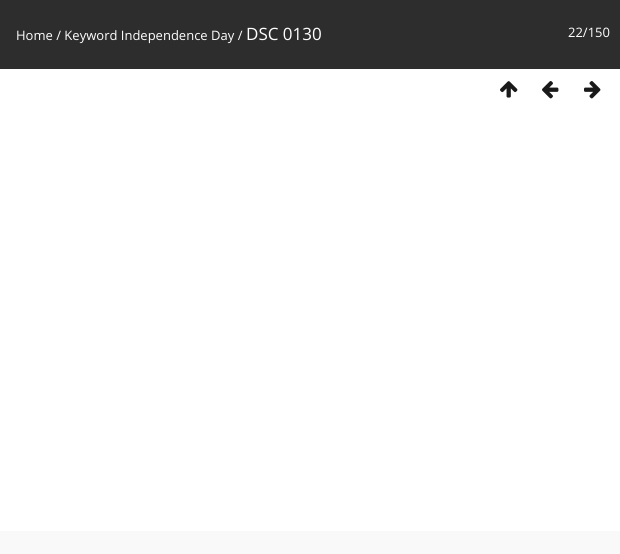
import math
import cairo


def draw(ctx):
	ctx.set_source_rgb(1, 1, 1)
	ctx.paint()
	ctx.set_source_rgb(0.176, 0.176, 0.176)
	ctx.rectangle(0, 0, 620, 69)
	ctx.fill()
	ctx.select_font_face('Open Sans')
	ctx.set_font_size(13)
	ctx.set_source_rgb(1, 1, 1)
	ctx.move_to(16, 40)
	ctx.show_text('Home / Keyword Independence Day /')
	ctx.set_font_size(17)
	ctx.move_to(246, 40)
	ctx.show_text('DSC 0130')
	ctx.set_font_size(13)
	ctx.move_to(568, 37)
	ctx.show_text('22/150')
	ctx.select_font_face('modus')
	ctx.set_font_size(20)
	ctx.set_source_rgb(0.102, 0.102, 0.102)
	for x, y, s in [
		(500, 96, '↑'),
		(542, 96, '←'),
		(584, 96, '→'),
	]:
		ctx.move_to(x, y)
		ctx.show_text(s)
	ctx.set_source_rgb(0.976, 0.976, 0.976)
	ctx.rectangle(0, 531, 620, 23)
	ctx.fill()


surface = cairo.ImageSurface(cairo.FORMAT_RGB24, 620, 554)
ctx = cairo.Context(surface)
options = cairo.FontOptions()
options.set_hint_metrics(cairo.HINT_METRICS_OFF)
options.set_hint_style(cairo.HINT_STYLE_NONE)
ctx.set_font_options(options)
ctx.set_miter_limit(4)
draw(ctx)
surface.write_to_png('image.png')
